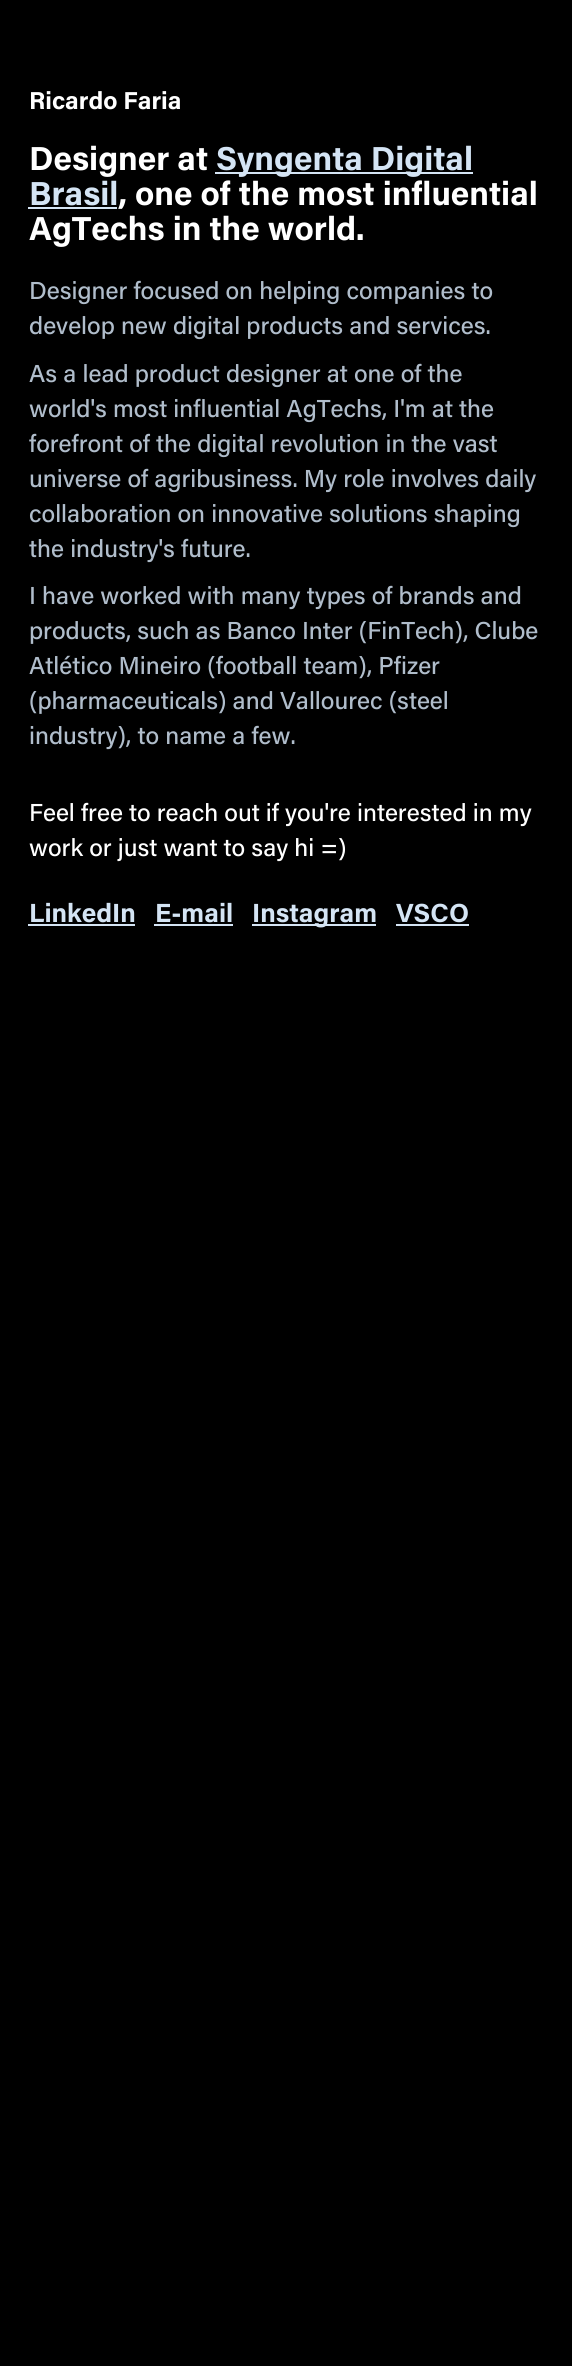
import math
import cairo


def draw(ctx):
	ctx.set_source_rgb(0, 0, 0)
	ctx.paint()
	ctx.select_font_face('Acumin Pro', cairo.FONT_SLANT_NORMAL, cairo.FONT_WEIGHT_BOLD)
	ctx.set_font_size(24.5)
	ctx.set_source_rgb(1, 1, 1)
	ctx.move_to(29, 109)
	ctx.show_text('Ricardo Faria')
	ctx.set_font_size(33.25)
	ctx.move_to(29, 170)
	ctx.show_text('Designer at')
	ctx.set_source_rgb(0.831, 0.894, 0.957)
	ctx.rectangle(215, 172, 258, 2)
	ctx.fill()
	ctx.move_to(216, 170)
	ctx.show_text('Syngenta Digital')
	ctx.move_to(29, 205)
	ctx.show_text('Brasil')
	ctx.set_source_rgb(1, 1, 1)
	ctx.move_to(118, 205)
	ctx.show_text(', one of the most influential')
	ctx.set_source_rgb(0.831, 0.894, 0.957)
	ctx.rectangle(28, 207, 89, 2)
	ctx.fill()
	ctx.set_source_rgb(1, 1, 1)
	ctx.move_to(29, 240)
	ctx.show_text('AgTechs in the world.')
	ctx.select_font_face('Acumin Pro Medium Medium')
	ctx.set_font_size(24.5)
	ctx.set_source_rgb(0.69, 0.741, 0.796)
	for x, y, s in [
		(29, 299, 'Designer focused on helping companies to'),
		(29, 334, 'develop new digital products and services.'),
		(29, 382, 'As a lead product designer at one of the'),
		(29, 417, 'world\'s most influential AgTechs, I\'m at the'),
		(29, 452, 'forefront of the digital revolution in the vast'),
		(29, 487, 'universe of agribusiness. My role involves daily'),
		(29, 522, 'collaboration on innovative solutions shaping'),
		(29, 557, 'the industry\'s future.'),
		(29, 604, 'I have worked with many types of brands and'),
		(29, 639, 'products, such as Banco Inter (FinTech), Clube'),
		(29, 674, 'Atlético Mineiro (football team), Pfizer'),
		(29, 709, '(pharmaceuticals) and Vallourec (steel'),
		(29, 744, 'industry), to name a few.'),
	]:
		ctx.move_to(x, y)
		ctx.show_text(s)
	ctx.set_source_rgb(1, 1, 1)
	ctx.move_to(29, 821)
	ctx.show_text('Feel free to reach out if you\'re interested in my')
	ctx.move_to(29, 856)
	ctx.show_text('work or just want to say hi =)')
	ctx.select_font_face('Acumin Pro', cairo.FONT_SLANT_NORMAL, cairo.FONT_WEIGHT_BOLD)
	ctx.set_font_size(26.25)
	ctx.set_source_rgb(0.831, 0.894, 0.957)
	ctx.move_to(29, 922)
	ctx.show_text('LinkedIn')
	ctx.rectangle(28, 924, 107, 2)
	ctx.fill()
	ctx.move_to(155, 922)
	ctx.show_text('E-mail')
	ctx.rectangle(154, 924, 79, 2)
	ctx.fill()
	ctx.rectangle(252, 924, 124, 2)
	ctx.fill()
	ctx.move_to(252, 922)
	ctx.show_text('Instagram')
	ctx.move_to(396, 922)
	ctx.show_text('VSCO')
	ctx.rectangle(396, 924, 73, 2)
	ctx.fill()


surface = cairo.ImageSurface(cairo.FORMAT_RGB24, 572, 2366)
ctx = cairo.Context(surface)
options = cairo.FontOptions()
options.set_hint_metrics(cairo.HINT_METRICS_OFF)
options.set_hint_style(cairo.HINT_STYLE_NONE)
ctx.set_font_options(options)
ctx.set_miter_limit(4)
draw(ctx)
surface.write_to_png('image.png')
